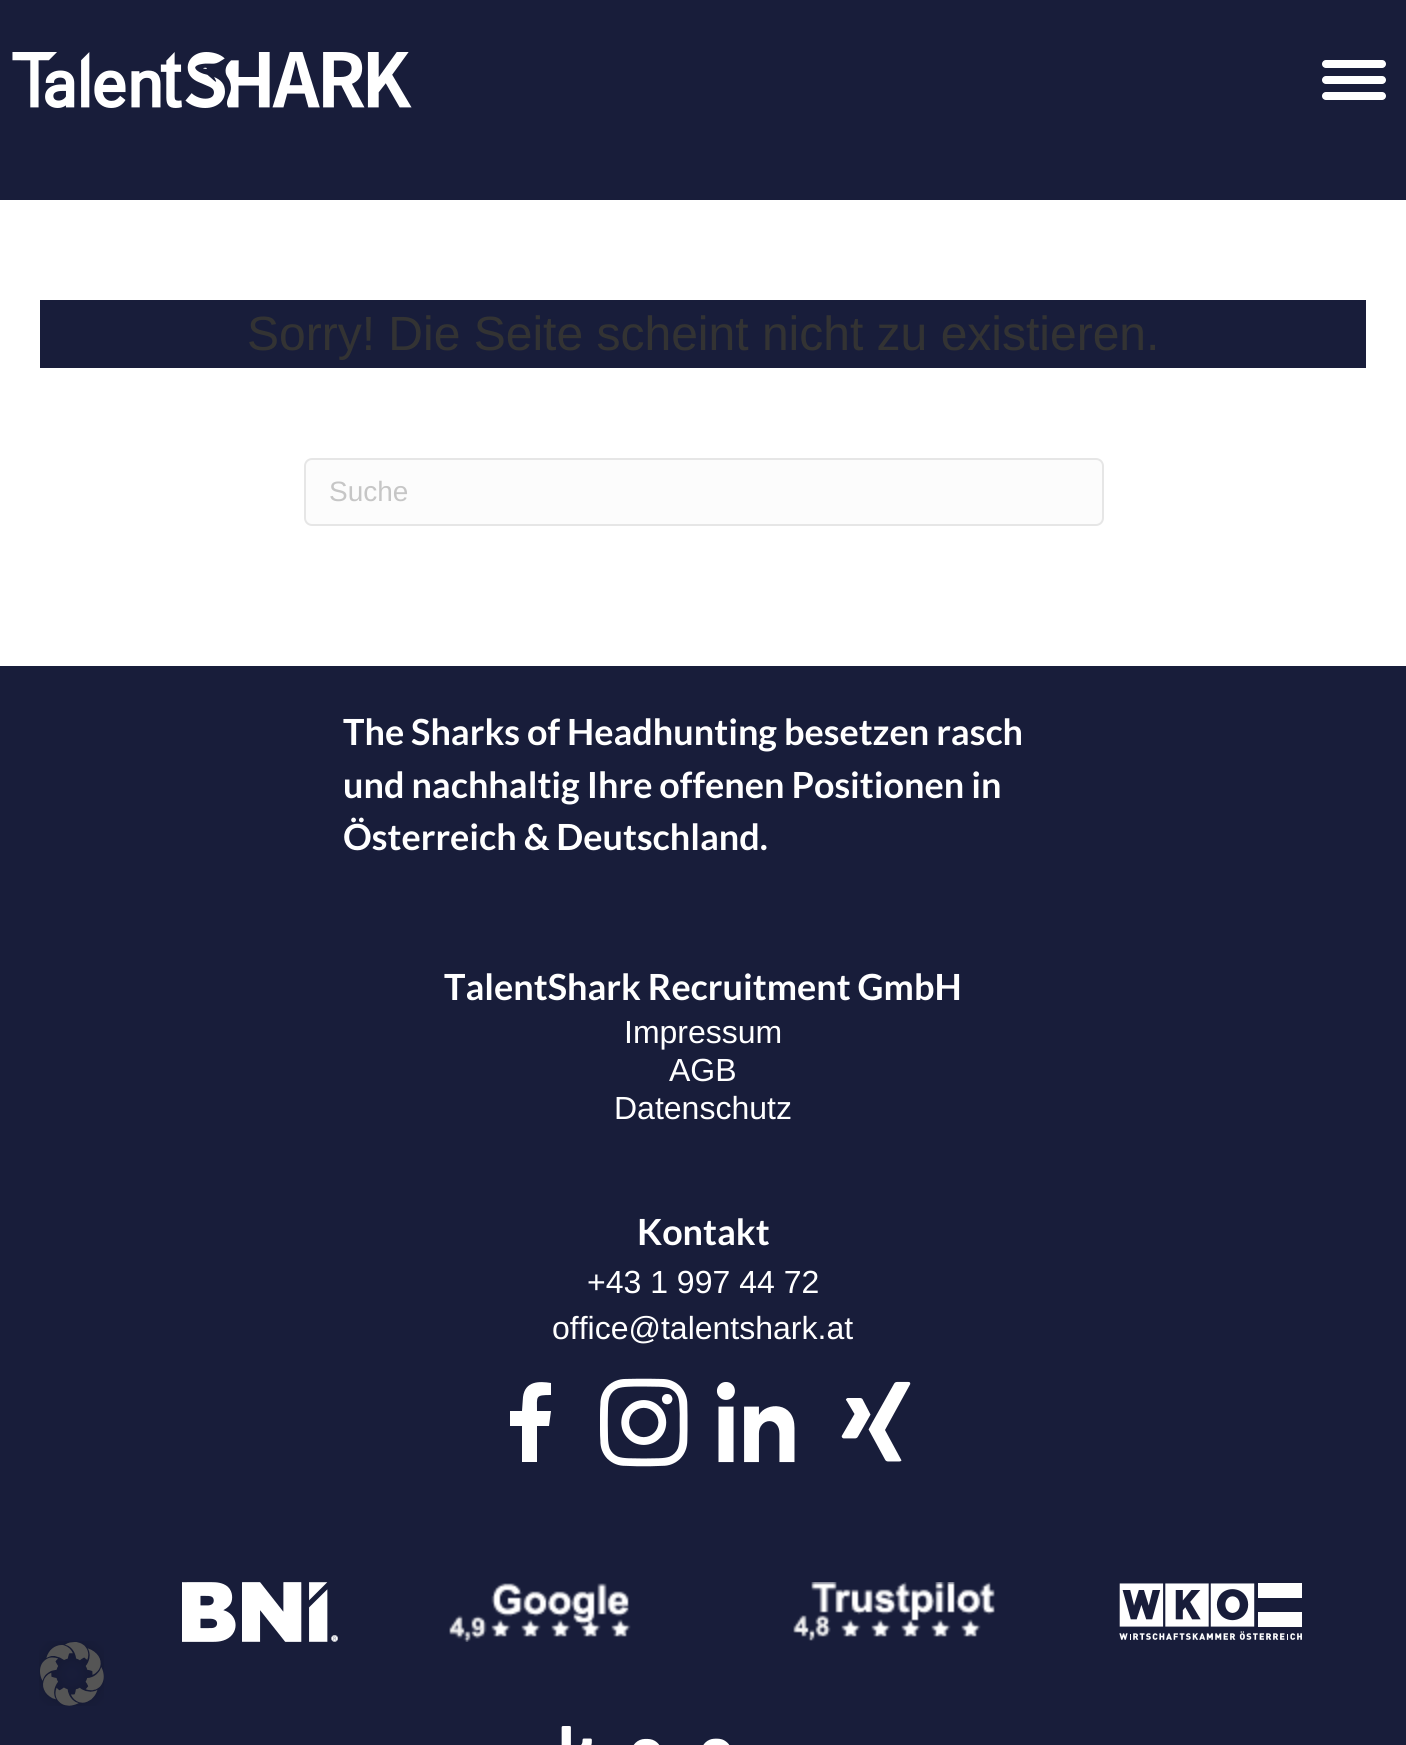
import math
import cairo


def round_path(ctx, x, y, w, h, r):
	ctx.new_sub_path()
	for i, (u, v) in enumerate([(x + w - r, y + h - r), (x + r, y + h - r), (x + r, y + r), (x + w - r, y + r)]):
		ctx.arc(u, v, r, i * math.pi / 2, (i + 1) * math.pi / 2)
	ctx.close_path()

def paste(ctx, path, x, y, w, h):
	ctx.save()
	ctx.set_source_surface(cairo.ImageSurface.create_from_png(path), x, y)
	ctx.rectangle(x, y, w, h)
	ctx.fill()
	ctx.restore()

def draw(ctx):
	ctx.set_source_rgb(0.094, 0.114, 0.227)
	ctx.paint()
	paste(ctx, 'media/1.png', 12, 52, 400, 56)
	ctx.set_source_rgb(1, 1, 1)
	round_path(ctx, 1322, 60, 64, 8, 4)
	ctx.fill()
	round_path(ctx, 1322, 76, 64, 8, 4)
	ctx.fill()
	round_path(ctx, 1322, 92, 64, 8, 4)
	ctx.fill()
	ctx.rectangle(0, 200, 1406, 466)
	ctx.fill()
	ctx.set_source_rgb(0.094, 0.114, 0.227)
	ctx.rectangle(40, 300, 1326, 68)
	ctx.fill()
	ctx.select_font_face('Liberation Sans')
	ctx.set_font_size(48)
	ctx.set_source_rgb(0.2, 0.2, 0.2)
	ctx.move_to(247, 350)
	ctx.show_text('Sorry! Die Seite scheint nicht zu existieren.')
	ctx.set_source_rgb(0.988, 0.988, 0.988)
	round_path(ctx, 305, 459, 798, 66, 7)
	ctx.fill_preserve()
	ctx.set_source_rgb(0.902, 0.902, 0.902)
	ctx.stroke()
	ctx.set_font_size(28)
	ctx.set_source_rgb(0.776, 0.776, 0.776)
	ctx.move_to(329, 501)
	ctx.show_text('Suche')
	ctx.select_font_face('Lato', cairo.FONT_SLANT_NORMAL, cairo.FONT_WEIGHT_BOLD)
	ctx.set_font_size(36)
	ctx.set_source_rgb(1, 1, 1)
	for x, y, s in [
		(343, 745, 'The Sharks of Headhunting besetzen rasch'),
		(343, 798, 'und nachhaltig Ihre offenen Positionen in'),
		(343, 850, 'Österreich & Deutschland.'),
		(444, 1000, 'TalentShark Recruitment GmbH'),
	]:
		ctx.move_to(x, y)
		ctx.show_text(s)
	ctx.select_font_face('Liberation Sans')
	ctx.set_font_size(32)
	for x, y, s in [
		(624, 1043, 'Impressum'),
		(669, 1081, 'AGB'),
		(614, 1119, 'Datenschutz'),
	]:
		ctx.move_to(x, y)
		ctx.show_text(s)
	ctx.select_font_face('Lato', cairo.FONT_SLANT_NORMAL, cairo.FONT_WEIGHT_BOLD)
	ctx.set_font_size(36)
	ctx.move_to(637, 1245)
	ctx.show_text('Kontakt')
	ctx.select_font_face('Liberation Sans')
	ctx.set_font_size(32)
	ctx.move_to(587, 1293)
	ctx.show_text('+43 1 997 44 72')
	ctx.move_to(552, 1339)
	ctx.show_text('office@talentshark.at')
	ctx.new_path()
	ctx.move_to(522, 1462)
	ctx.line_to(537, 1462)
	ctx.line_to(537, 1426)
	ctx.line_to(549, 1426)
	ctx.line_to(551, 1411)
	ctx.line_to(537, 1411)
	ctx.curve_to(537, 1396, 535, 1395, 551, 1395)
	ctx.line_to(551, 1383)
	ctx.curve_to(539, 1381, 525, 1381, 523, 1397)
	ctx.line_to(522, 1411)
	ctx.line_to(510, 1411)
	ctx.line_to(510, 1426)
	ctx.line_to(522, 1426)
	ctx.close_path()
	ctx.fill()
	paste(ctx, 'media/2.png', 600, 1378, 88, 89)
	paste(ctx, 'media/3.png', 716, 1382, 79, 81)
	paste(ctx, 'media/4.png', 841, 1381, 70, 81)
	paste(ctx, 'media/5.png', 182, 1582, 156, 60)
	paste(ctx, 'media/6.png', 449, 1583, 182, 59)
	paste(ctx, 'media/7.png', 793, 1582, 202, 59)
	paste(ctx, 'media/8.png', 1119, 1583, 183, 57)
	paste(ctx, 'media/9.png', 561, 1726, 169, 19)
	paste(ctx, 'media/10.png', 39, 1641, 65, 65)


surface = cairo.ImageSurface(cairo.FORMAT_RGB24, 1406, 1745)
ctx = cairo.Context(surface)
options = cairo.FontOptions()
options.set_hint_metrics(cairo.HINT_METRICS_OFF)
options.set_hint_style(cairo.HINT_STYLE_NONE)
ctx.set_font_options(options)
ctx.set_miter_limit(4)
draw(ctx)
surface.write_to_png('image.png')
